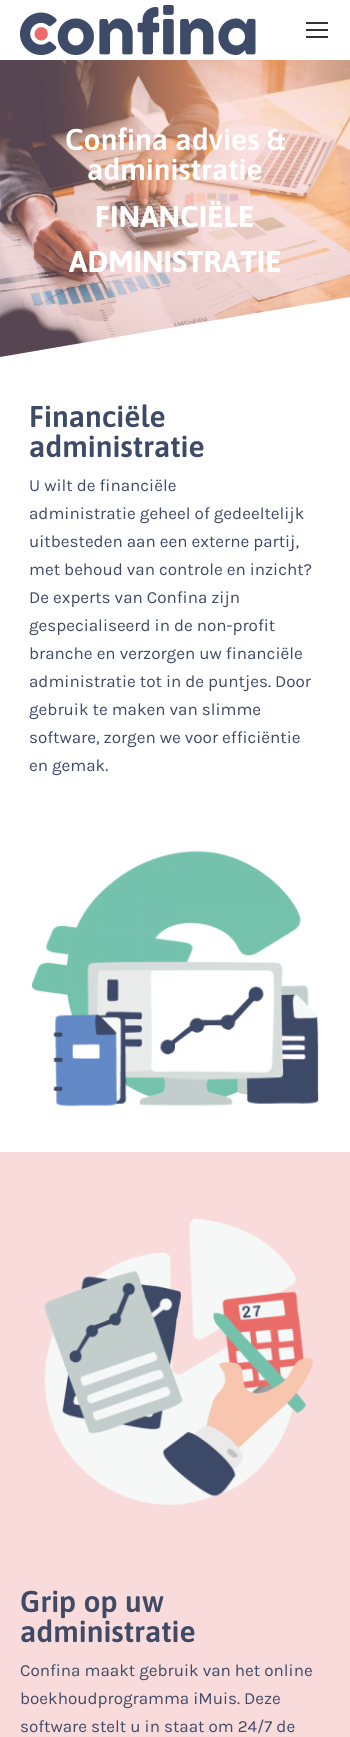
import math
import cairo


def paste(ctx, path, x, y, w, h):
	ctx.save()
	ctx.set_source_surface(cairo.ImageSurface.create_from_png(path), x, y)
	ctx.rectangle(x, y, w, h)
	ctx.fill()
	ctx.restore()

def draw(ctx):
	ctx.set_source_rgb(1, 1, 1)
	ctx.paint()
	paste(ctx, 'media/1.png', 20, 5, 236, 50)
	ctx.set_source_rgb(0.2, 0.2, 0.2)
	ctx.rectangle(306, 22, 22, 2)
	ctx.rectangle(306, 29, 22, 2)
	ctx.rectangle(306, 36, 22, 2)
	ctx.fill()
	paste(ctx, 'media/2.png', 0, 60, 350, 297)
	ctx.select_font_face('Asap SemiBold')
	ctx.set_font_size(30)
	ctx.set_source_rgb(1, 1, 1)
	ctx.move_to(65, 150)
	ctx.show_text('Confina advies &')
	ctx.move_to(87, 180)
	ctx.show_text('administratie')
	ctx.select_font_face('Asap', cairo.FONT_SLANT_NORMAL, cairo.FONT_WEIGHT_BOLD)
	ctx.move_to(95, 227)
	ctx.show_text('FINANCIËLE')
	ctx.move_to(69, 272)
	ctx.show_text('ADMINISTRATIE')
	ctx.new_path()
	ctx.move_to(350, 297)
	ctx.line_to(350, 357)
	ctx.line_to(0, 357)
	ctx.close_path()
	ctx.fill()
	ctx.select_font_face('Asap SemiBold')
	ctx.set_source_rgb(0.243, 0.29, 0.4)
	ctx.move_to(29, 427)
	ctx.show_text('Financiële')
	ctx.move_to(29, 457)
	ctx.show_text('administratie')
	ctx.select_font_face('Karla')
	ctx.set_font_size(17)
	for x, y, s in [
		(29, 491, 'U wilt de financiële'),
		(29, 519, 'administratie geheel of gedeeltelijk'),
		(29, 547, 'uitbesteden aan een externe partij,'),
		(29, 575, 'met behoud van controle en inzicht?'),
		(29, 603, 'De experts van Confina zijn'),
		(29, 631, 'gespecialiseerd in de non-profit'),
		(29, 659, 'branche en verzorgen uw financiële'),
		(29, 687, 'administratie tot in de puntjes. Door'),
		(29, 715, 'gebruik te maken van slimme'),
		(29, 743, 'software, zorgen we voor efficiëntie'),
		(29, 771, 'en gemak.'),
	]:
		ctx.move_to(x, y)
		ctx.show_text(s)
	paste(ctx, 'media/3.png', 31, 850, 288, 257)
	ctx.set_source_rgb(0.98, 0.859, 0.859)
	ctx.rectangle(0, 1152, 350, 585)
	ctx.fill()
	paste(ctx, 'media/4.png', 44, 1218, 270, 287)
	ctx.select_font_face('Asap SemiBold')
	ctx.set_font_size(30)
	ctx.set_source_rgb(0.243, 0.29, 0.4)
	ctx.move_to(20, 1612)
	ctx.show_text('Grip op uw')
	ctx.move_to(20, 1642)
	ctx.show_text('administratie')
	ctx.select_font_face('Karla')
	ctx.set_font_size(17)
	for x, y, s in [
		(20, 1676, 'Confina maakt gebruik van het online'),
		(20, 1704, 'boekhoudprogramma iMuis. Deze'),
		(20, 1732, 'software stelt u in staat om 24/7 de'),
	]:
		ctx.move_to(x, y)
		ctx.show_text(s)


surface = cairo.ImageSurface(cairo.FORMAT_RGB24, 350, 1737)
ctx = cairo.Context(surface)
options = cairo.FontOptions()
options.set_hint_metrics(cairo.HINT_METRICS_OFF)
options.set_hint_style(cairo.HINT_STYLE_NONE)
ctx.set_font_options(options)
ctx.set_miter_limit(4)
draw(ctx)
surface.write_to_png('image.png')
